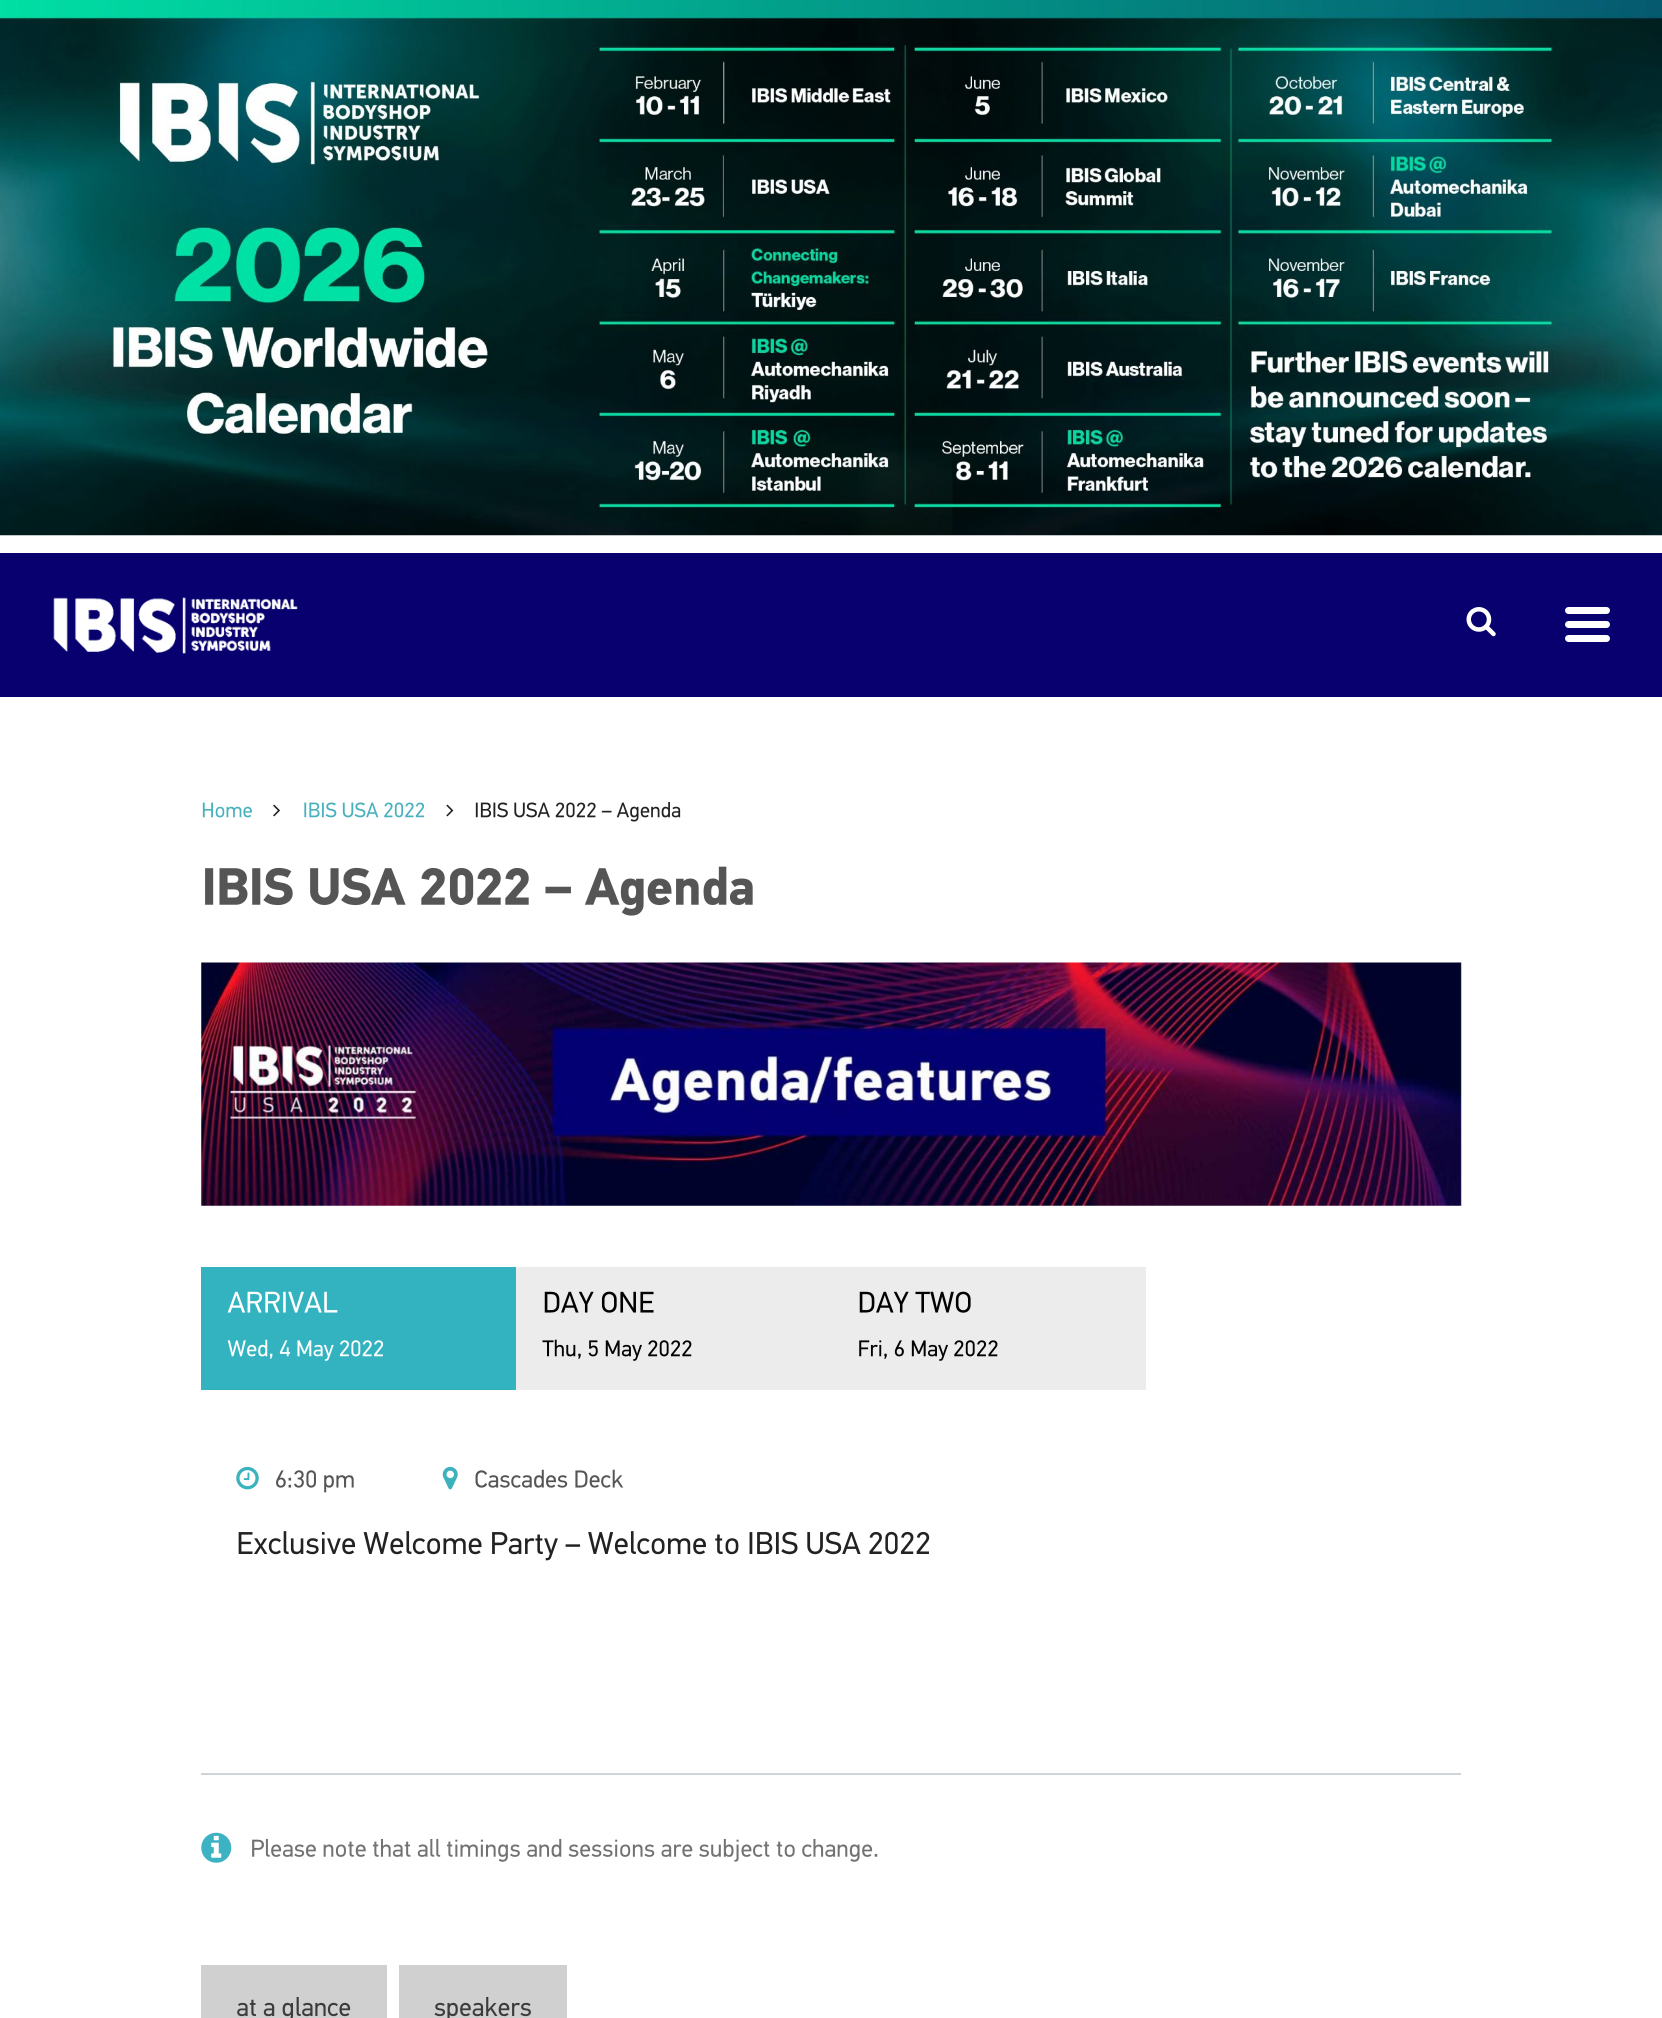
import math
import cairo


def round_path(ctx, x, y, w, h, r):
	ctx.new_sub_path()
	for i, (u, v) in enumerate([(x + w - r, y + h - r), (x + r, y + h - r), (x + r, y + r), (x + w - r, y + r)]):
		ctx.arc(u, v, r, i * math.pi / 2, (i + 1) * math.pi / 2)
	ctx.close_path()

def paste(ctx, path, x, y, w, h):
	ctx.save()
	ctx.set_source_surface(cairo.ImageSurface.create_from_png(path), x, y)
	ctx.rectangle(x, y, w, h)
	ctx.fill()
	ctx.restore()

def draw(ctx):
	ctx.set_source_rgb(1, 1, 1)
	ctx.paint()
	paste(ctx, 'media/1.png', 0, 0, 1662, 536)
	ctx.set_source_rgb(0.031, 0, 0.431)
	ctx.rectangle(0, 553, 1662, 144)
	ctx.fill()
	paste(ctx, 'media/2.png', 53, 597, 245, 57)
	ctx.set_source_rgb(1, 1, 1)
	round_path(ctx, 1565, 621, 45, 7, 3.5)
	ctx.fill()
	round_path(ctx, 1565, 607, 45, 7, 3.5)
	ctx.fill()
	round_path(ctx, 1565, 635, 45, 7, 3.5)
	ctx.fill()
	paste(ctx, 'media/3.png', 1466, 607, 30, 30)
	paste(ctx, 'media/4.png', 202, 802, 50, 16)
	paste(ctx, 'media/5.png', 273, 804, 7, 13)
	paste(ctx, 'media/6.png', 304, 802, 121, 16)
	paste(ctx, 'media/7.png', 446, 804, 8, 13)
	paste(ctx, 'media/8.png', 475, 802, 206, 20)
	paste(ctx, 'media/9.png', 205, 866, 548, 50)
	paste(ctx, 'media/10.png', 201, 962, 1261, 244)
	ctx.set_source_rgb(0.2, 0.702, 0.753)
	ctx.rectangle(201, 1267, 315, 123)
	ctx.fill()
	paste(ctx, 'media/11.png', 227, 1291, 111, 22)
	paste(ctx, 'media/12.png', 227, 1339, 157, 22)
	ctx.set_source_rgb(0.922, 0.922, 0.922)
	ctx.rectangle(516, 1267, 630, 123)
	ctx.fill()
	paste(ctx, 'media/13.png', 544, 1291, 110, 22)
	paste(ctx, 'media/14.png', 542, 1339, 150, 22)
	paste(ctx, 'media/15.png', 859, 1291, 112, 22)
	paste(ctx, 'media/16.png', 859, 1340, 139, 21)
	paste(ctx, 'media/17.png', 236, 1466, 23, 24)
	paste(ctx, 'media/18.png', 276, 1470, 78, 23)
	paste(ctx, 'media/19.png', 442, 1466, 16, 24)
	paste(ctx, 'media/20.png', 475, 1469, 149, 19)
	paste(ctx, 'media/21.png', 238, 1531, 692, 30)
	ctx.set_source_rgb(0.808, 0.831, 0.855)
	ctx.rectangle(201, 1773, 1260, 2)
	ctx.fill()
	paste(ctx, 'media/22.png', 201, 1832, 31, 31)
	paste(ctx, 'media/23.png', 252, 1838, 626, 24)
	ctx.set_source_rgb(0.816, 0.816, 0.816)
	ctx.rectangle(201, 1965, 186, 53)
	ctx.fill()
	paste(ctx, 'media/24.png', 237, 1996, 114, 22)
	ctx.rectangle(399, 1965, 168, 53)
	ctx.fill()
	paste(ctx, 'media/25.png', 434, 1996, 97, 22)


surface = cairo.ImageSurface(cairo.FORMAT_RGB24, 1662, 2018)
ctx = cairo.Context(surface)
options = cairo.FontOptions()
options.set_hint_metrics(cairo.HINT_METRICS_OFF)
options.set_hint_style(cairo.HINT_STYLE_NONE)
ctx.set_font_options(options)
ctx.set_miter_limit(4)
draw(ctx)
surface.write_to_png('image.png')
